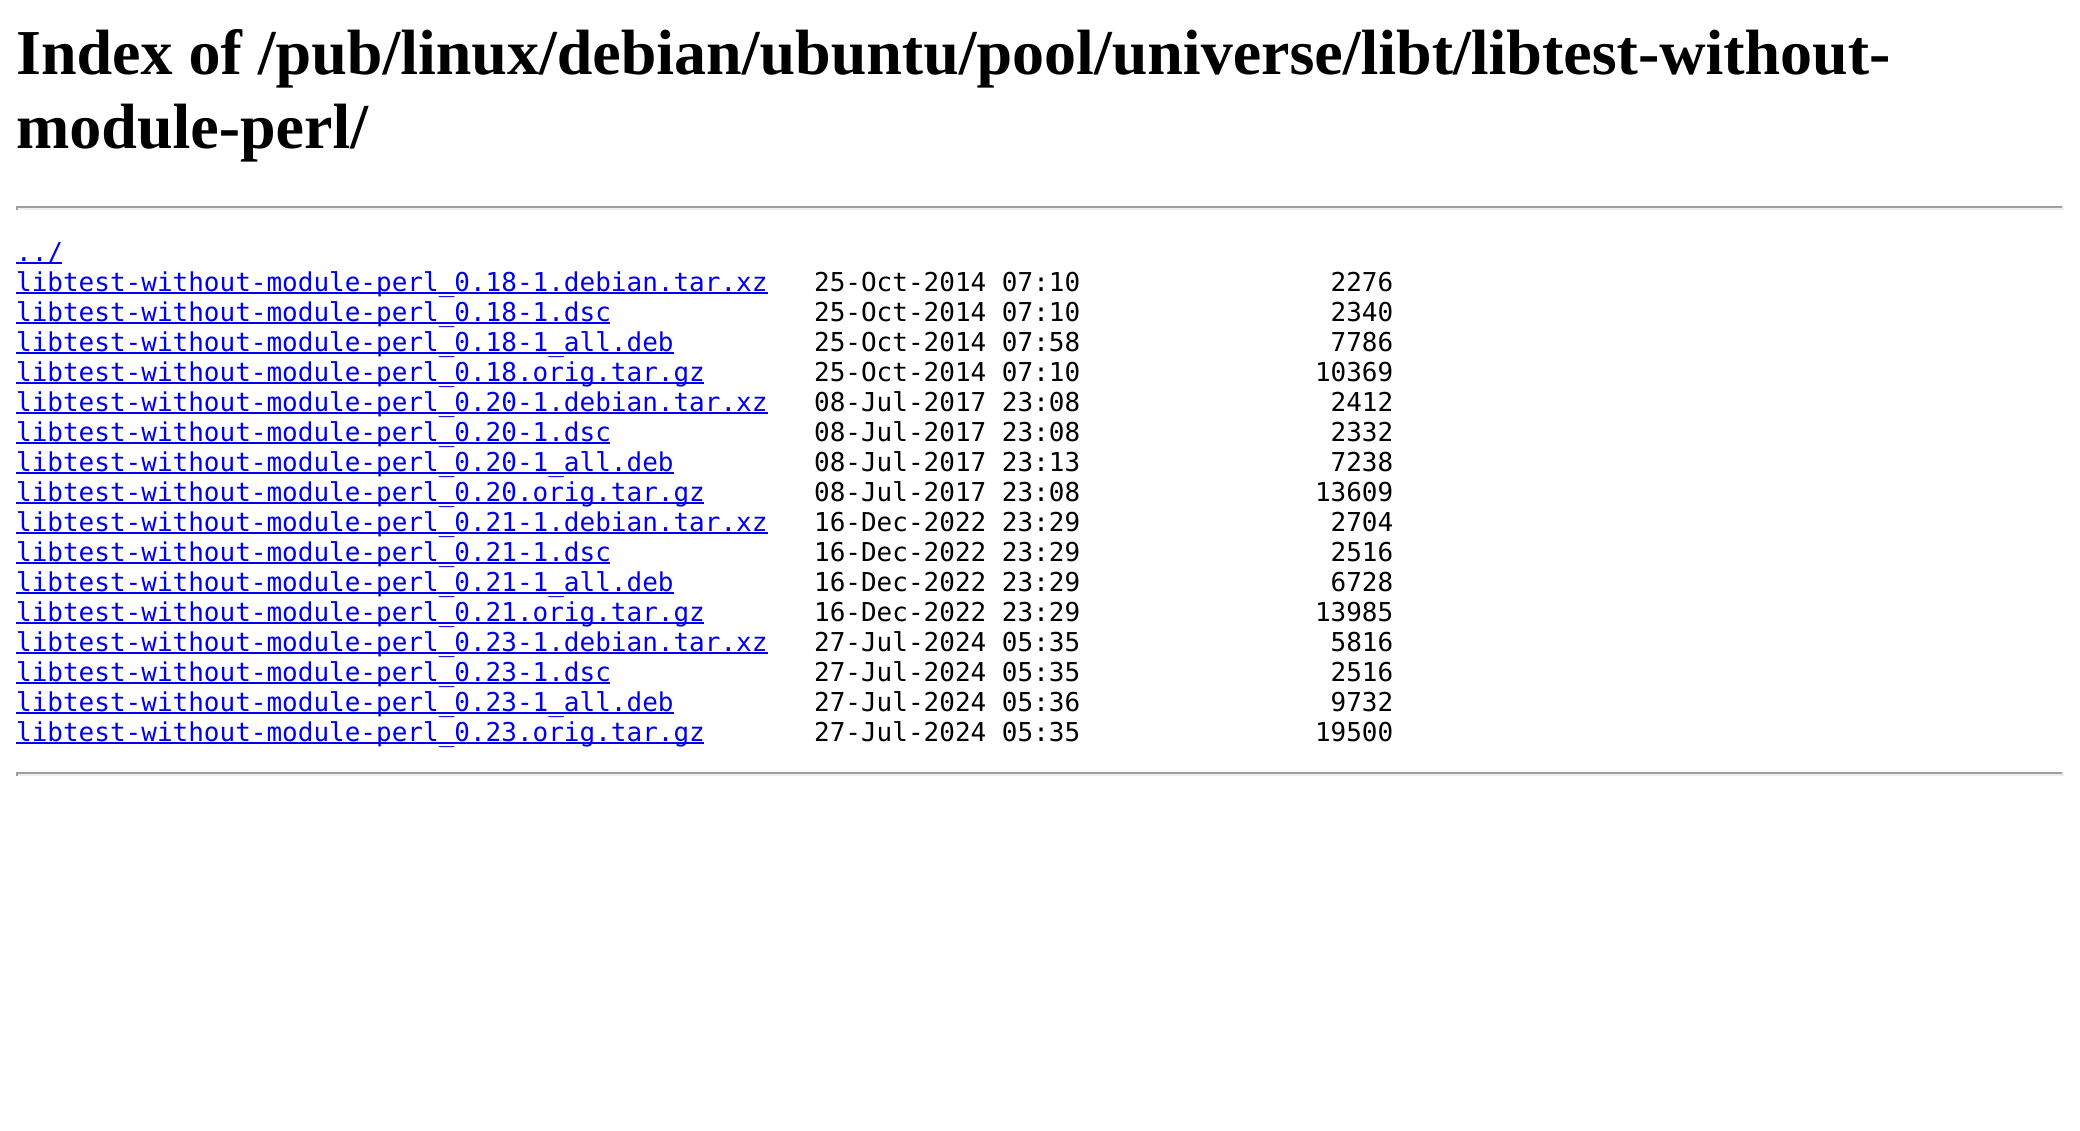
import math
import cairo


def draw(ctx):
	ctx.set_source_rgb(1, 1, 1)
	ctx.paint()
	ctx.select_font_face('Liberation Serif', cairo.FONT_SLANT_NORMAL, cairo.FONT_WEIGHT_BOLD)
	ctx.set_font_size(64)
	ctx.set_source_rgb(0, 0, 0)
	ctx.move_to(16, 74)
	ctx.show_text('Index of /pub/linux/debian/ubuntu/pool/universe/libt/libtest-without-')
	ctx.move_to(16, 148)
	ctx.show_text('module-perl/')
	ctx.set_source_rgb(0.624, 0.624, 0.624)
	ctx.rectangle(16, 206, 2048, 2)
	ctx.fill()
	ctx.set_source_rgb(0.933, 0.933, 0.933)
	ctx.rectangle(2062, 206, 2, 4)
	ctx.rectangle(16, 208, 2048, 2)
	ctx.fill()
	ctx.set_source_rgb(0.624, 0.624, 0.624)
	ctx.rectangle(16, 206, 2, 4)
	ctx.fill()
	ctx.set_source_rgb(0, 0, 0.933)
	ctx.rectangle(16, 262, 46, 2)
	ctx.fill()
	ctx.select_font_face('DejaVu Sans Mono')
	ctx.set_font_size(26)
	ctx.move_to(16, 261)
	ctx.show_text('../')
	ctx.rectangle(16, 292, 752, 2)
	ctx.fill()
	ctx.move_to(16, 291)
	ctx.show_text('libtest-without-module-perl_0.18-1.debian.tar.xz')
	ctx.set_source_rgb(0, 0, 0)
	ctx.move_to(814, 291)
	ctx.show_text('25-Oct-2014 07:10                2276')
	ctx.set_source_rgb(0, 0, 0.933)
	ctx.rectangle(16, 322, 594, 2)
	ctx.fill()
	ctx.move_to(16, 321)
	ctx.show_text('libtest-without-module-perl_0.18-1.dsc')
	ctx.set_source_rgb(0, 0, 0)
	ctx.move_to(814, 321)
	ctx.show_text('25-Oct-2014 07:10                2340')
	ctx.set_source_rgb(0, 0, 0.933)
	ctx.rectangle(16, 352, 658, 2)
	ctx.fill()
	ctx.move_to(16, 351)
	ctx.show_text('libtest-without-module-perl_0.18-1_all.deb')
	ctx.set_source_rgb(0, 0, 0)
	ctx.move_to(814, 351)
	ctx.show_text('25-Oct-2014 07:58                7786')
	ctx.set_source_rgb(0, 0, 0.933)
	ctx.rectangle(16, 382, 688, 2)
	ctx.fill()
	ctx.move_to(16, 381)
	ctx.show_text('libtest-without-module-perl_0.18.orig.tar.gz')
	ctx.set_source_rgb(0, 0, 0)
	ctx.move_to(814, 381)
	ctx.show_text('25-Oct-2014 07:10               10369')
	ctx.set_source_rgb(0, 0, 0.933)
	ctx.rectangle(16, 412, 752, 2)
	ctx.fill()
	ctx.move_to(16, 411)
	ctx.show_text('libtest-without-module-perl_0.20-1.debian.tar.xz')
	ctx.set_source_rgb(0, 0, 0)
	ctx.move_to(814, 411)
	ctx.show_text('08-Jul-2017 23:08                2412')
	ctx.set_source_rgb(0, 0, 0.933)
	ctx.rectangle(16, 442, 594, 2)
	ctx.fill()
	ctx.move_to(16, 441)
	ctx.show_text('libtest-without-module-perl_0.20-1.dsc')
	ctx.set_source_rgb(0, 0, 0)
	ctx.move_to(814, 441)
	ctx.show_text('08-Jul-2017 23:08                2332')
	ctx.set_source_rgb(0, 0, 0.933)
	ctx.rectangle(16, 472, 658, 2)
	ctx.fill()
	ctx.move_to(16, 471)
	ctx.show_text('libtest-without-module-perl_0.20-1_all.deb')
	ctx.set_source_rgb(0, 0, 0)
	ctx.move_to(814, 471)
	ctx.show_text('08-Jul-2017 23:13                7238')
	ctx.set_source_rgb(0, 0, 0.933)
	ctx.rectangle(16, 502, 688, 2)
	ctx.fill()
	ctx.move_to(16, 501)
	ctx.show_text('libtest-without-module-perl_0.20.orig.tar.gz')
	ctx.set_source_rgb(0, 0, 0)
	ctx.move_to(814, 501)
	ctx.show_text('08-Jul-2017 23:08               13609')
	ctx.set_source_rgb(0, 0, 0.933)
	ctx.rectangle(16, 532, 752, 2)
	ctx.fill()
	ctx.move_to(16, 531)
	ctx.show_text('libtest-without-module-perl_0.21-1.debian.tar.xz')
	ctx.set_source_rgb(0, 0, 0)
	ctx.move_to(814, 531)
	ctx.show_text('16-Dec-2022 23:29                2704')
	ctx.set_source_rgb(0, 0, 0.933)
	ctx.rectangle(16, 562, 594, 2)
	ctx.fill()
	ctx.move_to(16, 561)
	ctx.show_text('libtest-without-module-perl_0.21-1.dsc')
	ctx.set_source_rgb(0, 0, 0)
	ctx.move_to(814, 561)
	ctx.show_text('16-Dec-2022 23:29                2516')
	ctx.set_source_rgb(0, 0, 0.933)
	ctx.rectangle(16, 592, 658, 2)
	ctx.fill()
	ctx.move_to(16, 591)
	ctx.show_text('libtest-without-module-perl_0.21-1_all.deb')
	ctx.set_source_rgb(0, 0, 0)
	ctx.move_to(814, 591)
	ctx.show_text('16-Dec-2022 23:29                6728')
	ctx.set_source_rgb(0, 0, 0.933)
	ctx.rectangle(16, 622, 688, 2)
	ctx.fill()
	ctx.move_to(16, 621)
	ctx.show_text('libtest-without-module-perl_0.21.orig.tar.gz')
	ctx.set_source_rgb(0, 0, 0)
	ctx.move_to(814, 621)
	ctx.show_text('16-Dec-2022 23:29               13985')
	ctx.set_source_rgb(0, 0, 0.933)
	ctx.rectangle(16, 652, 752, 2)
	ctx.fill()
	ctx.move_to(16, 651)
	ctx.show_text('libtest-without-module-perl_0.23-1.debian.tar.xz')
	ctx.set_source_rgb(0, 0, 0)
	ctx.move_to(814, 651)
	ctx.show_text('27-Jul-2024 05:35                5816')
	ctx.set_source_rgb(0, 0, 0.933)
	ctx.rectangle(16, 682, 594, 2)
	ctx.fill()
	ctx.move_to(16, 681)
	ctx.show_text('libtest-without-module-perl_0.23-1.dsc')
	ctx.set_source_rgb(0, 0, 0)
	ctx.move_to(814, 681)
	ctx.show_text('27-Jul-2024 05:35                2516')
	ctx.set_source_rgb(0, 0, 0.933)
	ctx.rectangle(16, 712, 658, 2)
	ctx.fill()
	ctx.move_to(16, 711)
	ctx.show_text('libtest-without-module-perl_0.23-1_all.deb')
	ctx.set_source_rgb(0, 0, 0)
	ctx.move_to(814, 711)
	ctx.show_text('27-Jul-2024 05:36                9732')
	ctx.set_source_rgb(0, 0, 0.933)
	ctx.rectangle(16, 742, 688, 2)
	ctx.fill()
	ctx.move_to(16, 741)
	ctx.show_text('libtest-without-module-perl_0.23.orig.tar.gz')
	ctx.set_source_rgb(0, 0, 0)
	ctx.move_to(814, 741)
	ctx.show_text('27-Jul-2024 05:35               19500')
	ctx.set_source_rgb(0.624, 0.624, 0.624)
	ctx.rectangle(16, 772, 2048, 2)
	ctx.fill()
	ctx.set_source_rgb(0.933, 0.933, 0.933)
	ctx.rectangle(2062, 772, 2, 4)
	ctx.rectangle(16, 774, 2048, 2)
	ctx.fill()
	ctx.set_source_rgb(0.624, 0.624, 0.624)
	ctx.rectangle(16, 772, 2, 4)
	ctx.fill()


surface = cairo.ImageSurface(cairo.FORMAT_RGB24, 2080, 1131)
ctx = cairo.Context(surface)
options = cairo.FontOptions()
options.set_hint_metrics(cairo.HINT_METRICS_OFF)
options.set_hint_style(cairo.HINT_STYLE_NONE)
ctx.set_font_options(options)
ctx.set_miter_limit(4)
draw(ctx)
surface.write_to_png('image.png')
